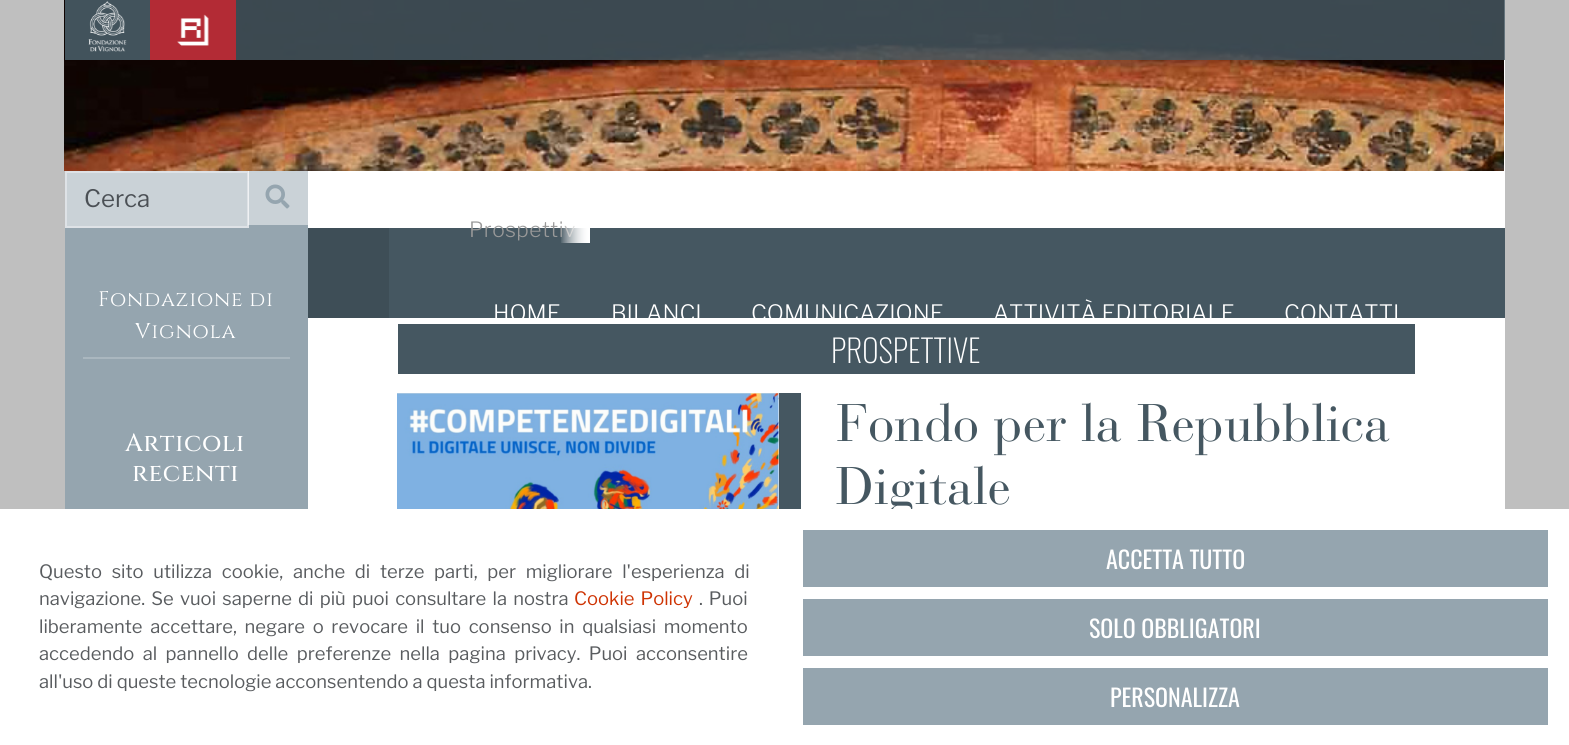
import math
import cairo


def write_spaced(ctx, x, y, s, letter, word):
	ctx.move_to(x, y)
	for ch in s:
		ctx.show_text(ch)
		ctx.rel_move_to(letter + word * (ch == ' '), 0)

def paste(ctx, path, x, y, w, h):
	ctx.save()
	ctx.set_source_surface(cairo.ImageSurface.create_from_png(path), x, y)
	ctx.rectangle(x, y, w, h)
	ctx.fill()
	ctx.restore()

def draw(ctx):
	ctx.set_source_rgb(0.749, 0.749, 0.749)
	ctx.paint()
	ctx.set_source_rgb(1, 1, 1)
	ctx.rectangle(308, 171, 1197, 338)
	ctx.fill()
	ctx.set_source_rgb(0.584, 0.647, 0.686)
	ctx.rectangle(65, 171, 243, 338)
	ctx.fill()
	ctx.set_source_rgb(0.792, 0.824, 0.843)
	ctx.rectangle(66, 172, 182, 55)
	ctx.fill_preserve()
	ctx.set_source_rgb(0.871, 0.886, 0.902)
	ctx.stroke()
	ctx.select_font_face('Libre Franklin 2 Thin')
	ctx.set_font_size(24)
	ctx.set_source_rgb(0.294, 0.314, 0.333)
	ctx.move_to(84, 207)
	ctx.show_text('Cerca')
	ctx.set_source_rgba(1, 1, 1, 0.5)
	ctx.rectangle(248, 171, 60, 54)
	ctx.fill()
	paste(ctx, 'media/1.png', 265, 184, 25, 25)
	ctx.set_source_rgb(0.667, 0.718, 0.749)
	ctx.rectangle(83, 357, 207, 2)
	ctx.fill()
	ctx.select_font_face('Cinzel')
	ctx.set_font_size(21)
	ctx.set_source_rgb(1, 1, 1)
	write_spaced(ctx, 98, 306, 'Fondazione di', 0.75, 0)
	write_spaced(ctx, 135, 338, 'Vignola', 0.75, 0)
	ctx.select_font_face('Cinzel Medium')
	ctx.set_font_size(25)
	write_spaced(ctx, 125, 451, 'Articoli', 0.5, 0)
	write_spaced(ctx, 132, 481, 'recenti', 0.5, 0)
	ctx.set_source_rgb(0.271, 0.341, 0.38)
	ctx.rectangle(389, 228, 1116, 90)
	ctx.fill()
	ctx.select_font_face('Libre Franklin Thin')
	ctx.set_font_size(21)
	ctx.set_source_rgb(0.6, 0.6, 0.6)
	write_spaced(ctx, 469, 237, 'Prospettiv', 0.5, 0)
	gradient = cairo.LinearGradient(590, 228, 560, 228)
	gradient.add_color_stop_rgba(0, 1, 1, 1, 1)
	gradient.add_color_stop_rgba(1, 1, 1, 1, 0)
	ctx.set_source(gradient)
	ctx.rectangle(561, 221, 29, 22)
	ctx.fill()
	ctx.rectangle(561, 221, 29, 22)
	ctx.fill()
	ctx.set_source_rgb(0.271, 0.341, 0.38)
	ctx.rectangle(398, 324, 1017, 50)
	ctx.fill()
	ctx.select_font_face('Oswald ExtraLight')
	ctx.set_font_size(31.5)
	ctx.set_source_rgb(1, 1, 1)
	ctx.move_to(831, 363)
	ctx.show_text('PROSPETTIVE')
	paste(ctx, 'media/2.png', 397, 393, 382, 116)
	ctx.set_source_rgb(0.271, 0.341, 0.38)
	ctx.rectangle(779, 393, 22, 116)
	ctx.fill()
	ctx.select_font_face('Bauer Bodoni')
	ctx.set_font_size(52.5)
	ctx.move_to(836, 441)
	ctx.show_text('Fondo per la Repubblica')
	ctx.move_to(836, 504)
	ctx.show_text('Digitale')
	ctx.set_source_rgb(1, 1, 1)
	ctx.rectangle(1504, 0, 1, 171)
	ctx.fill()
	paste(ctx, 'media/3.png', 64, 0, 1440, 171)
	ctx.set_source_rgba(0.271, 0.341, 0.38, 0.83)
	ctx.rectangle(236, 0, 1269, 60)
	ctx.fill()
	ctx.set_source_rgb(0.259, 0.325, 0.361)
	ctx.rectangle(65, 0, 85, 60)
	ctx.fill()
	paste(ctx, 'media/4.png', 88, 1, 39, 51)
	ctx.set_source_rgb(0.702, 0.169, 0.208)
	ctx.rectangle(150, 0, 86, 60)
	ctx.fill()
	paste(ctx, 'media/5.png', 177, 14, 32, 32)
	ctx.set_source_rgb(0.243, 0.306, 0.341)
	ctx.rectangle(308, 228, 81, 90)
	ctx.fill()
	ctx.select_font_face('Libre Franklin Thin')
	ctx.set_font_size(22.5)
	ctx.set_source_rgb(1, 1, 1)
	for x, y, s in [
		(493, 321, 'HOME'),
		(611, 321, 'BILANCI'),
		(751, 321, 'COMUNICAZIONE'),
		(993, 321, 'ATTIVITÀ EDITORIALE'),
		(1284, 321, 'CONTATTI'),
	]:
		ctx.move_to(x, y)
		ctx.show_text(s)
	ctx.rectangle(0, 509, 1569, 236)
	ctx.fill()
	ctx.select_font_face('Libre Franklin 2 Thin')
	ctx.set_font_size(18.4)
	ctx.set_source_rgb(0.349, 0.361, 0.373)
	write_spaced(ctx, 39, 578, 'Questo sito utilizza cookie, anche di terze parti, per migliorare l\'esperienza di', 0, 5.75)
	write_spaced(ctx, 39, 605, 'navigazione. Se vuoi saperne di più puoi consultare la nostra', 0, 2.25)
	ctx.set_source_rgb(0.808, 0.2, 0.012)
	write_spaced(ctx, 574, 605, 'Cookie Policy', 0, 2)
	ctx.set_source_rgb(0.349, 0.361, 0.373)
	write_spaced(ctx, 699, 605, '. Puoi', 0, 2)
	write_spaced(ctx, 39, 633, 'liberamente accettare, negare o revocare il tuo consenso in qualsiasi momento', 0, 3.75)
	write_spaced(ctx, 39, 660, 'accedendo al pannello delle preferenze nella pagina privacy. Puoi acconsentire', 0, 4.5)
	ctx.move_to(39, 688)
	ctx.show_text('all\'uso di queste tecnologie acconsentendo a questa informativa.')
	ctx.set_source_rgb(0.584, 0.647, 0.686)
	ctx.rectangle(803, 530, 745, 57)
	ctx.fill()
	ctx.select_font_face('Oswald')
	ctx.set_font_size(24)
	ctx.set_source_rgb(1, 1, 1)
	ctx.move_to(1106, 569)
	ctx.show_text('ACCETTA TUTTO')
	ctx.set_source_rgb(0.584, 0.647, 0.686)
	ctx.rectangle(803, 599, 745, 57)
	ctx.fill()
	ctx.set_source_rgb(1, 1, 1)
	ctx.move_to(1089, 638)
	ctx.show_text('SOLO OBBLIGATORI')
	ctx.set_source_rgb(0.584, 0.647, 0.686)
	ctx.rectangle(803, 668, 745, 57)
	ctx.fill()
	ctx.set_source_rgb(1, 1, 1)
	ctx.move_to(1110, 707)
	ctx.show_text('PERSONALIZZA')


surface = cairo.ImageSurface(cairo.FORMAT_RGB24, 1569, 745)
ctx = cairo.Context(surface)
options = cairo.FontOptions()
options.set_hint_metrics(cairo.HINT_METRICS_OFF)
options.set_hint_style(cairo.HINT_STYLE_NONE)
ctx.set_font_options(options)
ctx.set_miter_limit(4)
draw(ctx)
surface.write_to_png('image.png')
